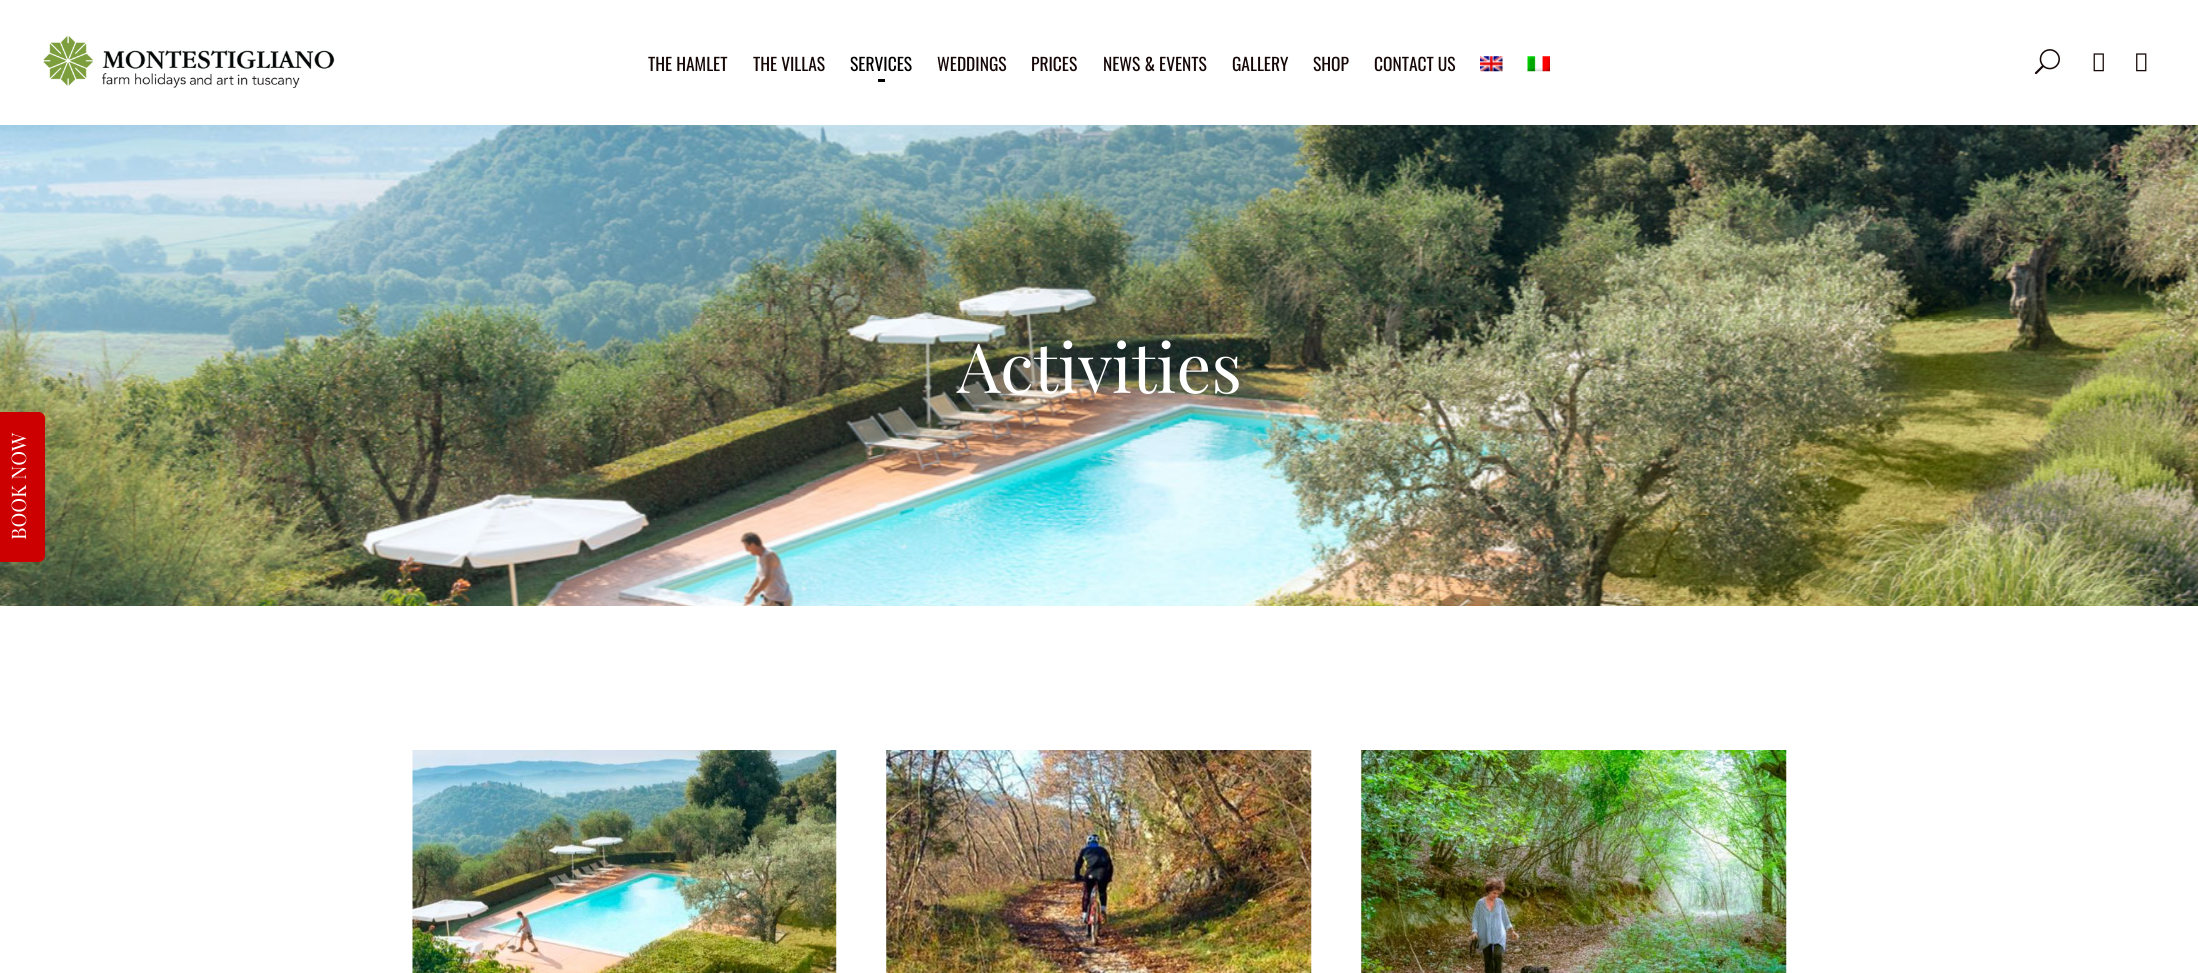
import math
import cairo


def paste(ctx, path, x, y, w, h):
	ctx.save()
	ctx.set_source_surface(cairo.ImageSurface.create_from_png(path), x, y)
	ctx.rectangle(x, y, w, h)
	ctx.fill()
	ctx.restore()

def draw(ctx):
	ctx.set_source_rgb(1, 1, 1)
	ctx.paint()
	paste(ctx, 'media/1.png', 43, 36, 292, 52)
	ctx.select_font_face('Oswald')
	ctx.set_font_size(17.5)
	ctx.set_source_rgb(0.086, 0.031, 0.031)
	ctx.move_to(648, 71)
	ctx.show_text('THE HAMLET')
	ctx.move_to(753, 71)
	ctx.show_text('THE VILLAS')
	ctx.set_source_rgb(0, 0, 0)
	ctx.move_to(850, 71)
	ctx.show_text('SERVICES')
	ctx.rectangle(878, 79, 7, 3)
	ctx.fill()
	ctx.set_source_rgb(0.086, 0.031, 0.031)
	for x, y, s in [
		(937, 71, 'WEDDINGS'),
		(1031, 71, 'PRICES'),
		(1103, 71, 'NEWS & EVENTS'),
		(1232, 71, 'GALLERY'),
		(1313, 71, 'SHOP'),
		(1374, 71, 'CONTACT US'),
	]:
		ctx.move_to(x, y)
		ctx.show_text(s)
	paste(ctx, 'media/2.png', 1480, 56, 23, 16)
	paste(ctx, 'media/3.png', 1527, 56, 23, 16)
	paste(ctx, 'media/4.png', 2034, 49, 26, 26)
	paste(ctx, 'media/5.png', 2093, 53, 11, 19)
	paste(ctx, 'media/6.png', 2136, 53, 11, 19)
	paste(ctx, 'media/7.png', 0, 125, 2198, 481)
	ctx.select_font_face('Playfair Display')
	ctx.set_font_size(68.75)
	ctx.set_source_rgb(1, 1, 1)
	ctx.move_to(957, 393)
	ctx.show_text('Activities')
	paste(ctx, 'media/8.png', 412, 750, 425, 223)
	paste(ctx, 'media/9.png', 886, 750, 426, 223)
	paste(ctx, 'media/10.png', 1361, 750, 426, 223)
	ctx.set_source_rgb(0.8, 0, 0)
	ctx.new_path()
	ctx.move_to(0, 562)
	ctx.line_to(0, 412)
	ctx.line_to(39, 412)
	ctx.curve_to(42, 412, 45, 415, 45, 418)
	ctx.line_to(45, 556)
	ctx.curve_to(45, 559, 42, 562, 39, 562)
	ctx.close_path()
	ctx.fill()
	ctx.set_font_size(20)
	ctx.set_source_rgb(1, 1, 1)
	ctx.save()
	ctx.translate(26, 540)
	ctx.rotate(-90 * math.pi / 180)
	ctx.move_to(0, 0)
	ctx.show_text('BOOK NOW')
	ctx.restore()


surface = cairo.ImageSurface(cairo.FORMAT_RGB24, 2198, 973)
ctx = cairo.Context(surface)
options = cairo.FontOptions()
options.set_hint_metrics(cairo.HINT_METRICS_OFF)
options.set_hint_style(cairo.HINT_STYLE_NONE)
ctx.set_font_options(options)
ctx.set_miter_limit(4)
draw(ctx)
surface.write_to_png('image.png')
